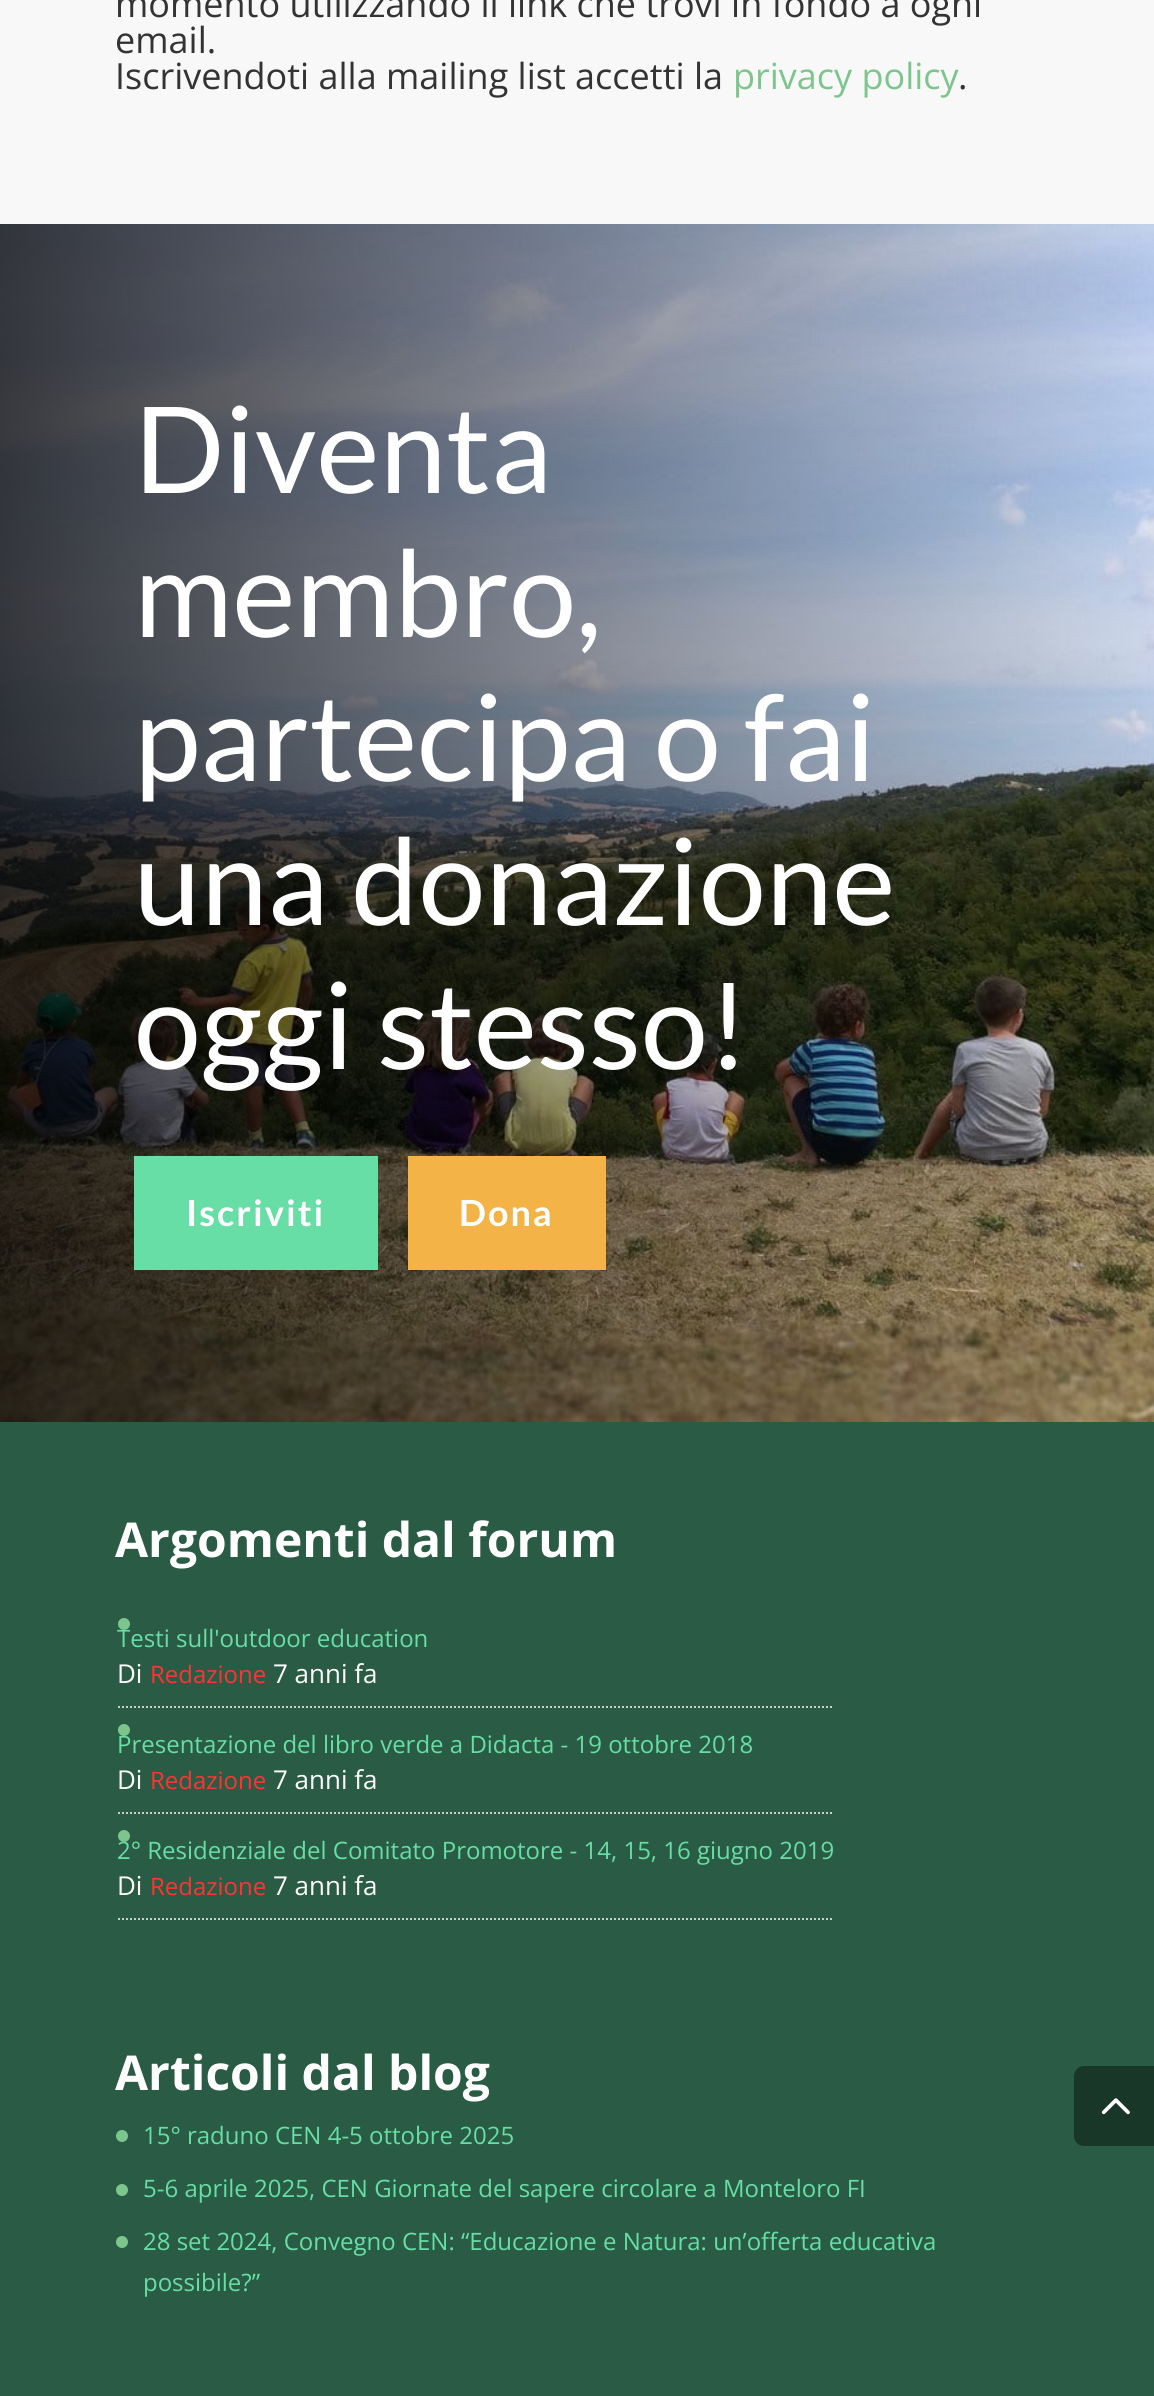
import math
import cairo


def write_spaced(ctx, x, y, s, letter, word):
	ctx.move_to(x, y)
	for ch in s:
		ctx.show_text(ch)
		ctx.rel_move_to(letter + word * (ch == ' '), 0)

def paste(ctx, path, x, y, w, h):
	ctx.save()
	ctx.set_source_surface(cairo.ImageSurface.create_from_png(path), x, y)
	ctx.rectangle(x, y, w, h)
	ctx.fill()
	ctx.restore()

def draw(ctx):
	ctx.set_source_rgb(0.165, 0.357, 0.267)
	ctx.paint()
	ctx.set_source_rgb(0.969, 0.969, 0.969)
	ctx.rectangle(0, 0, 1154, 224)
	ctx.fill()
	ctx.select_font_face('Open Sans')
	ctx.set_font_size(36)
	ctx.set_source_rgb(0.2, 0.2, 0.2)
	for x, y, s in [
		(115, 17, 'momento utilizzando il link che trovi in fondo a ogni'),
		(115, 53, 'email.'),
		(115, 89, 'Iscrivendoti alla mailing list accetti la'),
	]:
		ctx.move_to(x, y)
		ctx.show_text(s)
	ctx.set_source_rgb(0.486, 0.776, 0.553)
	ctx.move_to(733, 89)
	ctx.show_text('privacy policy')
	ctx.set_source_rgb(0.2, 0.2, 0.2)
	ctx.move_to(958, 89)
	ctx.show_text('.')
	paste(ctx, 'media/1.png', 0, 224, 1154, 1198)
	ctx.select_font_face('Lato')
	ctx.set_font_size(120)
	ctx.set_source_rgb(1, 1, 1)
	for x, y, s in [
		(134, 493, 'Diventa'),
		(134, 637, 'membro,'),
		(134, 781, 'partecipa o fai'),
		(134, 925, 'una donazione'),
		(134, 1069, 'oggi stesso!'),
	]:
		ctx.move_to(x, y)
		ctx.show_text(s)
	ctx.set_source_rgb(0.4, 0.871, 0.647)
	ctx.rectangle(134, 1156, 244, 114)
	ctx.fill()
	ctx.select_font_face('Lato', cairo.FONT_SLANT_NORMAL, cairo.FONT_WEIGHT_BOLD)
	ctx.set_font_size(36)
	ctx.set_source_rgb(1, 1, 1)
	write_spaced(ctx, 186, 1226, 'Iscriviti', 2, 0)
	ctx.set_source_rgb(0.953, 0.702, 0.275)
	ctx.rectangle(408, 1156, 198, 114)
	ctx.fill()
	ctx.set_source_rgb(1, 1, 1)
	write_spaced(ctx, 459, 1226, 'Dona', 2, 0)
	ctx.select_font_face('Open Sans', cairo.FONT_SLANT_NORMAL, cairo.FONT_WEIGHT_BOLD)
	ctx.set_font_size(48)
	ctx.move_to(115, 1557)
	ctx.show_text('Argomenti dal forum')
	ctx.new_path()
	ctx.move_to(118, 1707)
	ctx.line_to(834, 1707)
	ctx.set_source_rgb(0.8, 0.8, 0.8)
	ctx.set_dash([2, 2])
	ctx.stroke()
	ctx.select_font_face('Open Sans')
	ctx.set_font_size(24)
	ctx.set_source_rgb(0.4, 0.871, 0.647)
	ctx.move_to(117, 1647)
	ctx.show_text('Testi sull\'outdoor education')
	ctx.set_source_rgb(0.486, 0.776, 0.553)
	ctx.new_path()
	ctx.arc(124, 1624, 6, 0, 2 * math.pi)
	ctx.fill()
	ctx.set_font_size(26)
	ctx.set_source_rgb(1, 1, 1)
	ctx.move_to(117, 1683)
	ctx.show_text('Di')
	ctx.set_font_size(24)
	ctx.set_source_rgb(1, 0.2, 0.2)
	ctx.move_to(150, 1683)
	ctx.show_text('Redazione')
	ctx.set_font_size(26)
	ctx.set_source_rgb(1, 1, 1)
	ctx.move_to(273, 1683)
	ctx.show_text('7 anni fa')
	ctx.new_path()
	ctx.move_to(118, 1813)
	ctx.line_to(834, 1813)
	ctx.set_source_rgb(0.8, 0.8, 0.8)
	ctx.stroke()
	ctx.set_font_size(24)
	ctx.set_source_rgb(0.4, 0.871, 0.647)
	ctx.move_to(117, 1753)
	ctx.show_text('Presentazione del libro verde a Didacta - 19 ottobre 2018')
	ctx.set_source_rgb(0.486, 0.776, 0.553)
	ctx.new_path()
	ctx.arc(124, 1730, 6, 0, 2 * math.pi)
	ctx.fill()
	ctx.set_font_size(26)
	ctx.set_source_rgb(1, 1, 1)
	ctx.move_to(117, 1789)
	ctx.show_text('Di')
	ctx.set_font_size(24)
	ctx.set_source_rgb(1, 0.2, 0.2)
	ctx.move_to(150, 1789)
	ctx.show_text('Redazione')
	ctx.set_font_size(26)
	ctx.set_source_rgb(1, 1, 1)
	ctx.move_to(273, 1789)
	ctx.show_text('7 anni fa')
	ctx.new_path()
	ctx.move_to(118, 1919)
	ctx.line_to(834, 1919)
	ctx.set_source_rgb(0.8, 0.8, 0.8)
	ctx.stroke()
	ctx.set_font_size(24)
	ctx.set_source_rgb(0.4, 0.871, 0.647)
	ctx.move_to(117, 1859)
	ctx.show_text('2° Residenziale del Comitato Promotore - 14, 15, 16 giugno 2019')
	ctx.set_source_rgb(0.486, 0.776, 0.553)
	ctx.new_path()
	ctx.arc(124, 1836, 6, 0, 2 * math.pi)
	ctx.fill()
	ctx.set_font_size(26)
	ctx.set_source_rgb(1, 1, 1)
	ctx.move_to(117, 1895)
	ctx.show_text('Di')
	ctx.set_font_size(24)
	ctx.set_source_rgb(1, 0.2, 0.2)
	ctx.move_to(150, 1895)
	ctx.show_text('Redazione')
	ctx.set_font_size(26)
	ctx.set_source_rgb(1, 1, 1)
	ctx.move_to(273, 1895)
	ctx.show_text('7 anni fa')
	ctx.select_font_face('Open Sans', cairo.FONT_SLANT_NORMAL, cairo.FONT_WEIGHT_BOLD)
	ctx.set_font_size(48)
	ctx.move_to(115, 2090)
	ctx.show_text('Articoli dal blog')
	ctx.set_source_rgb(0.486, 0.776, 0.553)
	ctx.new_path()
	ctx.arc(122, 2136, 6, 0, 2 * math.pi)
	ctx.fill()
	ctx.select_font_face('Open Sans')
	ctx.set_font_size(24)
	ctx.set_source_rgb(0.4, 0.871, 0.647)
	ctx.move_to(143, 2144)
	ctx.show_text('15° raduno CEN 4-5 ottobre 2025')
	ctx.set_source_rgb(0.486, 0.776, 0.553)
	ctx.new_path()
	ctx.arc(122, 2190, 6, 0, 2 * math.pi)
	ctx.fill()
	ctx.set_source_rgb(0.4, 0.871, 0.647)
	ctx.move_to(143, 2197)
	ctx.show_text('5-6 aprile 2025, CEN Giornate del sapere circolare a Monteloro FI')
	ctx.set_source_rgb(0.486, 0.776, 0.553)
	ctx.new_path()
	ctx.arc(122, 2242, 6, 0, 2 * math.pi)
	ctx.fill()
	ctx.set_source_rgb(0.4, 0.871, 0.647)
	ctx.move_to(143, 2250)
	ctx.show_text('28 set 2024, Convegno CEN: “Educazione e Natura: un’offerta educativa')
	ctx.move_to(143, 2291)
	ctx.show_text('possibile?”')
	ctx.set_source_rgb(0.098, 0.216, 0.161)
	ctx.new_path()
	ctx.move_to(1084, 2066)
	ctx.line_to(1154, 2066)
	ctx.line_to(1154, 2146)
	ctx.line_to(1084, 2146)
	ctx.curve_to(1078.5, 2146, 1074, 2141.5, 1074, 2136)
	ctx.line_to(1074, 2076)
	ctx.curve_to(1074, 2070.5, 1078.5, 2066, 1084, 2066)
	ctx.close_path()
	ctx.fill()
	paste(ctx, 'media/2.png', 1101, 2098, 29, 17)


surface = cairo.ImageSurface(cairo.FORMAT_RGB24, 1154, 2396)
ctx = cairo.Context(surface)
options = cairo.FontOptions()
options.set_hint_metrics(cairo.HINT_METRICS_OFF)
options.set_hint_style(cairo.HINT_STYLE_NONE)
ctx.set_font_options(options)
ctx.set_miter_limit(4)
draw(ctx)
surface.write_to_png('image.png')
